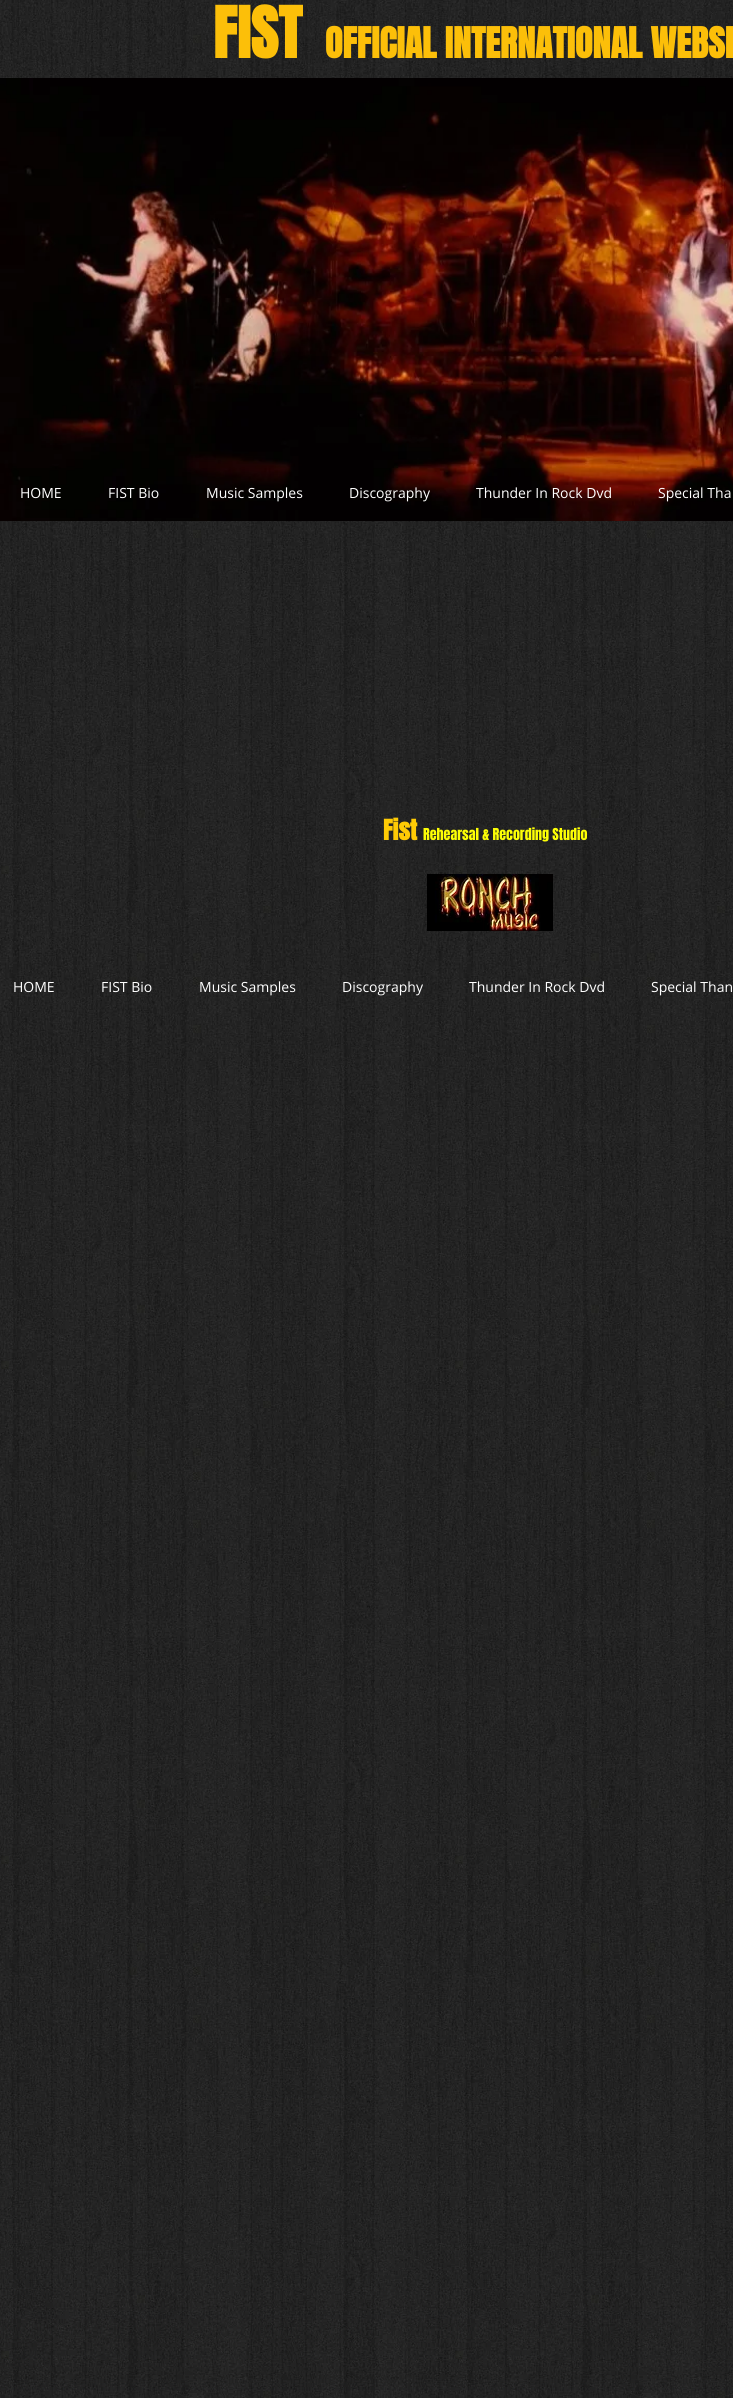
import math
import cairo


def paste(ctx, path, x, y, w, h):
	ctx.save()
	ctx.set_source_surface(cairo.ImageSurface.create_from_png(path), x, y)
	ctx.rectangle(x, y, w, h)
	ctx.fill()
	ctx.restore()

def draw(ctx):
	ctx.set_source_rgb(1, 1, 1)
	ctx.paint()
	paste(ctx, 'media/1.png', 0, 0, 733, 2398)
	ctx.select_font_face('Anton', cairo.FONT_SLANT_NORMAL, cairo.FONT_WEIGHT_BOLD)
	ctx.set_font_size(60)
	ctx.set_source_rgb(0.988, 0.749, 0.039)
	ctx.move_to(213, 58)
	ctx.show_text('FIST')
	ctx.set_font_size(36)
	ctx.move_to(325, 58)
	ctx.show_text('OFFICIAL INTERNATIONAL WEBSI')
	paste(ctx, 'media/2.png', 0, 78, 733, 443)
	ctx.select_font_face('Open Sans')
	ctx.set_font_size(14)
	ctx.set_source_rgb(1, 1, 1)
	for x, y, s in [
		(20, 498, 'HOME'),
		(108, 498, 'FIST Bio'),
		(206, 498, 'Music Samples'),
		(349, 498, 'Discography'),
		(476, 498, 'Thunder In Rock Dvd'),
		(658, 498, 'Special Tha'),
	]:
		ctx.move_to(x, y)
		ctx.show_text(s)
	ctx.select_font_face('Anton', cairo.FONT_SLANT_NORMAL, cairo.FONT_WEIGHT_BOLD)
	ctx.set_font_size(24)
	ctx.set_source_rgb(1, 0.796, 0.02)
	ctx.move_to(383, 840)
	ctx.show_text('Fist')
	ctx.select_font_face('Anton')
	ctx.set_font_size(14)
	ctx.set_source_rgb(0.992, 1, 0.02)
	ctx.move_to(423, 840)
	ctx.show_text('Rehearsal & Recording Studio')
	paste(ctx, 'media/3.png', 427, 874, 126, 57)
	ctx.select_font_face('Open Sans')
	ctx.set_source_rgb(1, 1, 1)
	for x, y, s in [
		(13, 992, 'HOME'),
		(101, 992, 'FIST Bio'),
		(199, 992, 'Music Samples'),
		(342, 992, 'Discography'),
		(469, 992, 'Thunder In Rock Dvd'),
		(651, 992, 'Special Than'),
	]:
		ctx.move_to(x, y)
		ctx.show_text(s)


surface = cairo.ImageSurface(cairo.FORMAT_RGB24, 733, 2398)
ctx = cairo.Context(surface)
options = cairo.FontOptions()
options.set_hint_metrics(cairo.HINT_METRICS_OFF)
options.set_hint_style(cairo.HINT_STYLE_NONE)
ctx.set_font_options(options)
ctx.set_miter_limit(4)
draw(ctx)
surface.write_to_png('image.png')
